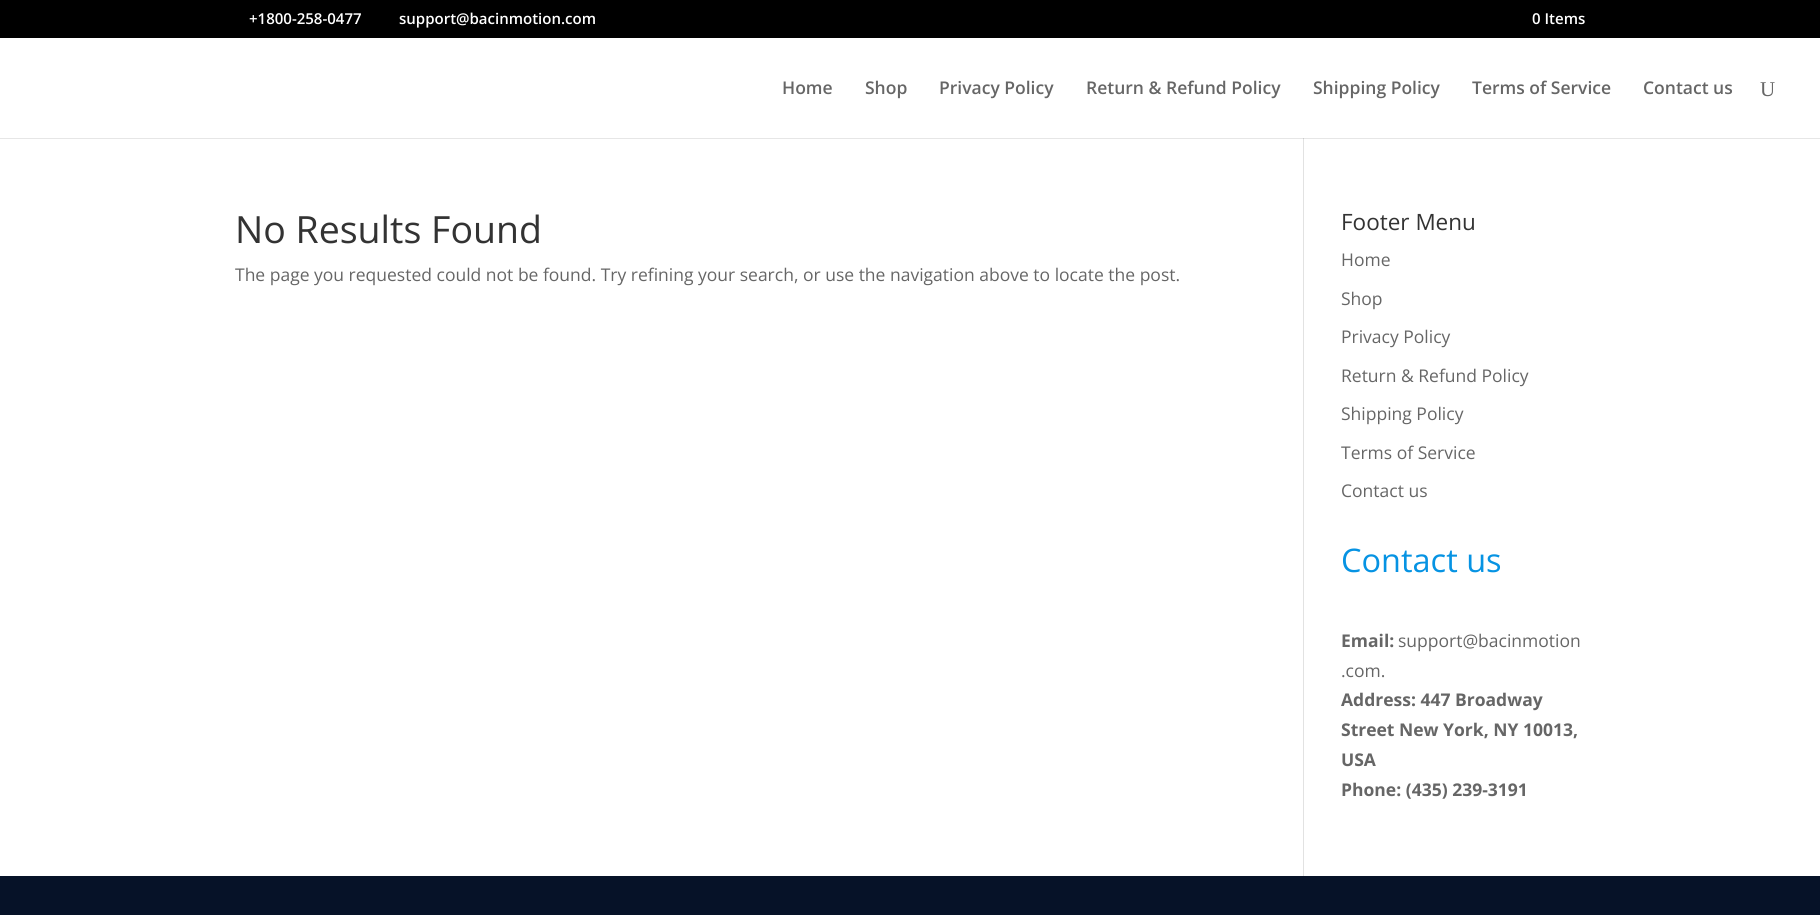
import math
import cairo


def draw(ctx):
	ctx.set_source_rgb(1, 1, 1)
	ctx.paint()
	ctx.set_source_rgb(0.902, 0.902, 0.902)
	ctx.rectangle(0, 138, 1820, 1)
	ctx.fill()
	ctx.set_source_rgb(0, 0, 0)
	ctx.rectangle(0, 0, 1820, 38)
	ctx.fill()
	ctx.select_font_face('Open Sans SemiBold')
	ctx.set_font_size(15)
	ctx.set_source_rgb(1, 1, 1)
	for x, y, s in [
		(249, 24, '+1800-258-0477'),
		(399, 24, 'support@bacinmotion.com'),
		(1532, 24, '0 Items'),
	]:
		ctx.move_to(x, y)
		ctx.show_text(s)
	ctx.set_font_size(17.5)
	ctx.set_source_rgb(0.4, 0.4, 0.4)
	for x, y, s in [
		(782, 94, 'Home'),
		(865, 94, 'Shop'),
		(939, 94, 'Privacy Policy'),
		(1086, 94, 'Return & Refund Policy'),
		(1313, 94, 'Shipping Policy'),
		(1472, 94, 'Terms of Service'),
		(1643, 94, 'Contact us'),
	]:
		ctx.move_to(x, y)
		ctx.show_text(s)
	ctx.select_font_face('Liberation Serif')
	ctx.set_font_size(21)
	ctx.move_to(1760, 96)
	ctx.show_text('U')
	ctx.set_source_rgb(0.886, 0.886, 0.886)
	ctx.rectangle(1303, 138, 1, 738)
	ctx.fill()
	ctx.set_source_rgb(0.796, 0.796, 0.796)
	ctx.rectangle(1303, 138, 1, 1)
	ctx.fill()
	ctx.select_font_face('Open Sans')
	ctx.set_font_size(37.5)
	ctx.set_source_rgb(0.2, 0.2, 0.2)
	ctx.move_to(235, 243)
	ctx.show_text('No Results Found')
	ctx.set_font_size(17.5)
	ctx.set_source_rgb(0.4, 0.4, 0.4)
	ctx.move_to(235, 281)
	ctx.show_text('The page you requested could not be found. Try refining your search, or use the navigation above to locate the post.')
	ctx.set_font_size(22.5)
	ctx.set_source_rgb(0.2, 0.2, 0.2)
	ctx.move_to(1341, 230)
	ctx.show_text('Footer Menu')
	ctx.set_font_size(17.5)
	ctx.set_source_rgb(0.4, 0.4, 0.4)
	for x, y, s in [
		(1341, 266, 'Home'),
		(1341, 305, 'Shop'),
		(1341, 343, 'Privacy Policy'),
		(1341, 382, 'Return & Refund Policy'),
		(1341, 420, 'Shipping Policy'),
		(1341, 459, 'Terms of Service'),
		(1341, 497, 'Contact us'),
	]:
		ctx.move_to(x, y)
		ctx.show_text(s)
	ctx.set_font_size(32.5)
	ctx.set_source_rgb(0.024, 0.576, 0.89)
	ctx.move_to(1341, 572)
	ctx.show_text('Contact us')
	ctx.select_font_face('Open Sans', cairo.FONT_SLANT_NORMAL, cairo.FONT_WEIGHT_BOLD)
	ctx.set_font_size(17.5)
	ctx.set_source_rgb(0.4, 0.4, 0.4)
	ctx.move_to(1341, 647)
	ctx.show_text('Email:')
	ctx.select_font_face('Open Sans')
	ctx.move_to(1398, 647)
	ctx.show_text('support@bacinmotion')
	ctx.move_to(1341, 677)
	ctx.show_text('.com.')
	ctx.select_font_face('Open Sans', cairo.FONT_SLANT_NORMAL, cairo.FONT_WEIGHT_BOLD)
	for x, y, s in [
		(1341, 706, 'Address: 447 Broadway'),
		(1341, 736, 'Street New York, NY 10013,'),
		(1341, 766, 'USA'),
		(1341, 796, 'Phone: (435) 239-3191'),
	]:
		ctx.move_to(x, y)
		ctx.show_text(s)
	ctx.set_source_rgb(0.024, 0.071, 0.157)
	ctx.rectangle(0, 876, 1820, 39)
	ctx.fill()


surface = cairo.ImageSurface(cairo.FORMAT_RGB24, 1820, 915)
ctx = cairo.Context(surface)
options = cairo.FontOptions()
options.set_hint_metrics(cairo.HINT_METRICS_OFF)
options.set_hint_style(cairo.HINT_STYLE_NONE)
ctx.set_font_options(options)
ctx.set_miter_limit(4)
draw(ctx)
surface.write_to_png('image.png')
